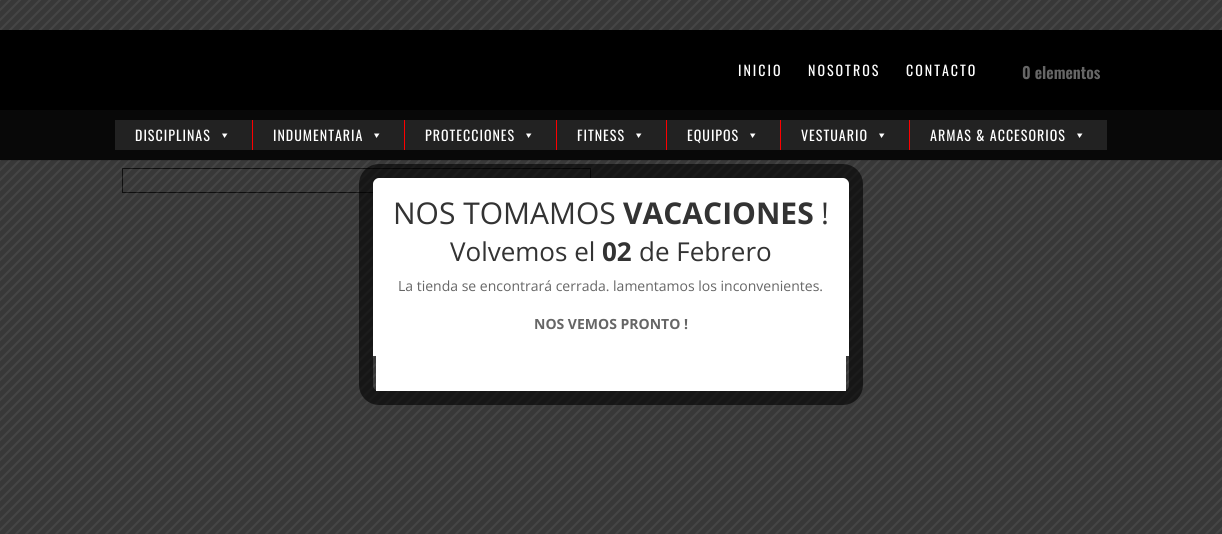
import math
import cairo


def write_spaced(ctx, x, y, s, letter, word):
	ctx.move_to(x, y)
	for ch in s:
		ctx.show_text(ch)
		ctx.rel_move_to(letter + word * (ch == ' '), 0)

def round_path(ctx, x, y, w, h, r):
	ctx.new_sub_path()
	for i, (u, v) in enumerate([(x + w - r, y + h - r), (x + r, y + h - r), (x + r, y + r), (x + w - r, y + r)]):
		ctx.arc(u, v, r, i * math.pi / 2, (i + 1) * math.pi / 2)
	ctx.close_path()

def paste(ctx, path, x, y, w, h):
	ctx.save()
	ctx.set_source_surface(cairo.ImageSurface.create_from_png(path), x, y)
	ctx.rectangle(x, y, w, h)
	ctx.fill()
	ctx.restore()

def draw(ctx):
	ctx.set_source_rgb(1, 1, 1)
	ctx.paint()
	ctx.rectangle(122.5, 168.5, 468, 24)
	ctx.set_source_rgb(0.188, 0.188, 0.188)
	ctx.set_line_width(1)
	ctx.stroke()
	paste(ctx, 'media/1.png', 0, 0, 1222, 534)
	ctx.set_source_rgba(0, 0, 0, 0.1)
	ctx.rectangle(0, 160, 1222, 1)
	ctx.fill()
	ctx.set_source_rgb(0, 0, 0)
	ctx.rectangle(0, 30, 1222, 80)
	ctx.fill()
	ctx.select_font_face('Oswald')
	ctx.set_font_size(14)
	ctx.set_source_rgb(1, 1, 1)
	for x, y, s in [
		(738, 76, 'INICIO'),
		(808, 76, 'NOSOTROS'),
		(906, 76, 'CONTACTO'),
	]:
		write_spaced(ctx, x, y, s, 2, 0)
	ctx.select_font_face('Oswald SemiBold')
	ctx.set_font_size(16)
	ctx.set_source_rgb(0.4, 0.4, 0.4)
	ctx.move_to(1022, 79)
	ctx.show_text('0 elementos')
	ctx.set_source_rgb(0.035, 0.035, 0.035)
	ctx.rectangle(0, 110, 1222, 50)
	ctx.fill()
	ctx.set_source_rgb(0.133, 0.133, 0.133)
	ctx.rectangle(115, 120, 137, 30)
	ctx.fill()
	ctx.select_font_face('Oswald')
	ctx.set_font_size(14)
	ctx.set_source_rgb(1, 1, 1)
	write_spaced(ctx, 135, 141, 'DISCIPLINAS', 1, 0)
	ctx.new_path()
	ctx.move_to(227.5, 133.5)
	ctx.line_to(224.5, 138)
	ctx.line_to(222, 133.5)
	ctx.close_path()
	ctx.fill()
	ctx.set_source_rgb(0.992, 0, 0)
	ctx.rectangle(252, 120, 1, 30)
	ctx.fill()
	ctx.set_source_rgb(0.133, 0.133, 0.133)
	ctx.rectangle(253, 120, 151, 30)
	ctx.fill()
	ctx.set_source_rgb(1, 1, 1)
	write_spaced(ctx, 273, 141, 'INDUMENTARIA', 1, 0)
	ctx.new_path()
	ctx.move_to(379.5, 133.5)
	ctx.line_to(376.5, 138)
	ctx.line_to(374, 133.5)
	ctx.close_path()
	ctx.fill()
	ctx.set_source_rgb(0.992, 0, 0)
	ctx.rectangle(404, 120, 1, 30)
	ctx.fill()
	ctx.set_source_rgb(0.133, 0.133, 0.133)
	ctx.rectangle(405, 120, 151, 30)
	ctx.fill()
	ctx.set_source_rgb(1, 1, 1)
	write_spaced(ctx, 425, 141, 'PROTECCIONES', 1, 0)
	ctx.new_path()
	ctx.move_to(531.5, 133.5)
	ctx.line_to(528.5, 138)
	ctx.line_to(526, 133.5)
	ctx.close_path()
	ctx.fill()
	ctx.set_source_rgb(0.992, 0, 0)
	ctx.rectangle(556, 120, 1, 30)
	ctx.fill()
	ctx.set_source_rgb(0.133, 0.133, 0.133)
	ctx.rectangle(557, 120, 109, 30)
	ctx.fill()
	ctx.set_source_rgb(1, 1, 1)
	write_spaced(ctx, 577, 141, 'FITNESS', 1, 0)
	ctx.new_path()
	ctx.move_to(641.5, 133.5)
	ctx.line_to(638.5, 138)
	ctx.line_to(636, 133.5)
	ctx.close_path()
	ctx.fill()
	ctx.set_source_rgb(0.992, 0, 0)
	ctx.rectangle(666, 120, 1, 30)
	ctx.fill()
	ctx.set_source_rgb(0.133, 0.133, 0.133)
	ctx.rectangle(667, 120, 113, 30)
	ctx.fill()
	ctx.set_source_rgb(1, 1, 1)
	write_spaced(ctx, 687, 141, 'EQUIPOS', 1, 0)
	ctx.new_path()
	ctx.move_to(755.5, 133.5)
	ctx.line_to(752.5, 138)
	ctx.line_to(750, 133.5)
	ctx.close_path()
	ctx.fill()
	ctx.set_source_rgb(0.992, 0, 0)
	ctx.rectangle(780, 120, 1, 30)
	ctx.fill()
	ctx.set_source_rgb(0.133, 0.133, 0.133)
	ctx.rectangle(781, 120, 128, 30)
	ctx.fill()
	ctx.set_source_rgb(1, 1, 1)
	write_spaced(ctx, 801, 141, 'VESTUARIO', 1, 0)
	ctx.new_path()
	ctx.move_to(884.5, 133.5)
	ctx.line_to(881.5, 138)
	ctx.line_to(879, 133.5)
	ctx.close_path()
	ctx.fill()
	ctx.set_source_rgb(0.992, 0, 0)
	ctx.rectangle(909, 120, 1, 30)
	ctx.fill()
	ctx.set_source_rgb(0.133, 0.133, 0.133)
	ctx.rectangle(910, 120, 197, 30)
	ctx.fill()
	ctx.set_source_rgb(1, 1, 1)
	write_spaced(ctx, 930, 141, 'ARMAS & ACCESORIOS', 1, 0)
	ctx.new_path()
	ctx.move_to(1082.5, 133.5)
	ctx.line_to(1079.5, 138)
	ctx.line_to(1077, 133.5)
	ctx.close_path()
	ctx.fill()
	round_path(ctx, 366, 171, 490, 227, 13)
	ctx.set_source_rgba(0, 0, 0, 0.6)
	ctx.set_line_width(14)
	ctx.stroke()
	ctx.set_source_rgb(1, 1, 1)
	ctx.new_path()
	ctx.move_to(379, 178)
	ctx.line_to(843, 178)
	ctx.curve_to(846, 178, 849, 181, 849, 184)
	ctx.line_to(849, 356)
	ctx.line_to(373, 356)
	ctx.line_to(373, 184)
	ctx.curve_to(373, 181, 376, 178, 379, 178)
	ctx.close_path()
	ctx.fill()
	ctx.rectangle(376, 356, 470, 35)
	ctx.fill()
	ctx.select_font_face('Open Sans')
	ctx.set_font_size(30)
	ctx.set_source_rgb(0.2, 0.2, 0.2)
	ctx.move_to(393, 224)
	ctx.show_text('NOS TOMAMOS')
	ctx.select_font_face('Open Sans', cairo.FONT_SLANT_NORMAL, cairo.FONT_WEIGHT_BOLD)
	ctx.move_to(623, 224)
	ctx.show_text('VACACIONES')
	ctx.select_font_face('Open Sans')
	ctx.move_to(821, 224)
	ctx.show_text('!')
	ctx.set_font_size(26)
	ctx.move_to(450, 261)
	ctx.show_text('Volvemos el')
	ctx.select_font_face('Open Sans', cairo.FONT_SLANT_NORMAL, cairo.FONT_WEIGHT_BOLD)
	ctx.move_to(602, 261)
	ctx.show_text('02')
	ctx.select_font_face('Open Sans')
	ctx.move_to(639, 261)
	ctx.show_text('de Febrero')
	ctx.set_font_size(14)
	ctx.set_source_rgb(0.4, 0.4, 0.4)
	ctx.move_to(398, 291)
	ctx.show_text('La tienda se encontrará cerrada. lamentamos los inconvenientes.')
	ctx.select_font_face('Open Sans', cairo.FONT_SLANT_NORMAL, cairo.FONT_WEIGHT_BOLD)
	ctx.move_to(534, 329)
	ctx.show_text('NOS VEMOS PRONTO !')


surface = cairo.ImageSurface(cairo.FORMAT_RGB24, 1222, 534)
ctx = cairo.Context(surface)
options = cairo.FontOptions()
options.set_hint_metrics(cairo.HINT_METRICS_OFF)
options.set_hint_style(cairo.HINT_STYLE_NONE)
ctx.set_font_options(options)
ctx.set_miter_limit(4)
draw(ctx)
surface.write_to_png('image.png')
